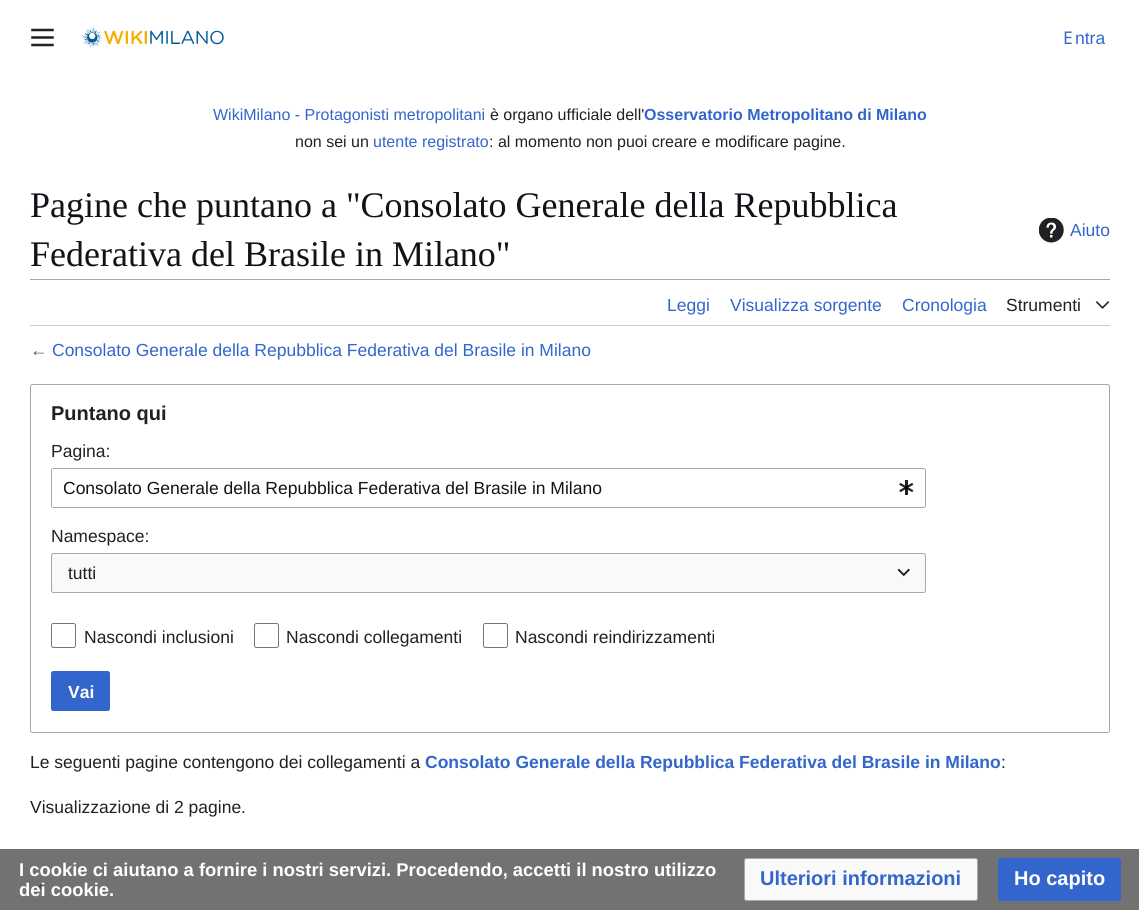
import math
import cairo


def round_path(ctx, x, y, w, h, r):
	ctx.new_sub_path()
	for i, (u, v) in enumerate([(x + w - r, y + h - r), (x + r, y + h - r), (x + r, y + r), (x + w - r, y + r)]):
		ctx.arc(u, v, r, i * math.pi / 2, (i + 1) * math.pi / 2)
	ctx.close_path()

def paste(ctx, path, x, y, w, h):
	ctx.save()
	ctx.set_source_surface(cairo.ImageSurface.create_from_png(path), x, y)
	ctx.rectangle(x, y, w, h)
	ctx.fill()
	ctx.restore()

def draw(ctx):
	ctx.set_source_rgb(1, 1, 1)
	ctx.paint()
	paste(ctx, 'media/1.png', 31, 28, 23, 19)
	paste(ctx, 'media/2.png', 81, 27, 143, 21)
	ctx.select_font_face('Noto Sans')
	ctx.set_font_size(17.5)
	ctx.set_source_rgb(0.2, 0.4, 0.8)
	ctx.move_to(1063, 44)
	ctx.show_text('E')
	ctx.select_font_face('Liberation Sans')
	ctx.move_to(1075, 44)
	ctx.show_text('ntra')
	ctx.set_font_size(16)
	ctx.move_to(213, 120)
	ctx.show_text('WikiMilano - Protagonisti metropolitani')
	ctx.set_source_rgb(0.125, 0.129, 0.133)
	ctx.move_to(490, 120)
	ctx.show_text('è organo ufficiale dell\'')
	ctx.select_font_face('Liberation Sans', cairo.FONT_SLANT_NORMAL, cairo.FONT_WEIGHT_BOLD)
	ctx.set_source_rgb(0.2, 0.4, 0.8)
	ctx.move_to(644, 120)
	ctx.show_text('Osservatorio Metropolitano di Milano')
	ctx.select_font_face('Liberation Sans')
	ctx.set_source_rgb(0.125, 0.129, 0.133)
	ctx.move_to(295, 147)
	ctx.show_text('non sei un')
	ctx.set_source_rgb(0.2, 0.4, 0.8)
	ctx.move_to(373, 147)
	ctx.show_text('utente registrato')
	ctx.set_source_rgb(0.125, 0.129, 0.133)
	ctx.move_to(489, 147)
	ctx.show_text(': al momento non puoi creare e modificare pagine.')
	ctx.select_font_face('Liberation Serif')
	ctx.set_font_size(36)
	ctx.set_source_rgb(0.063, 0.078, 0.094)
	ctx.move_to(30, 217)
	ctx.show_text('Pagine che puntano a "Consolato Generale della Repubblica')
	ctx.move_to(30, 266)
	ctx.show_text('Federativa del Brasile in Milano"')
	paste(ctx, 'media/3.png', 1039, 218, 25, 25)
	ctx.select_font_face('Liberation Sans')
	ctx.set_font_size(17.5)
	ctx.set_source_rgb(0.2, 0.4, 0.8)
	ctx.move_to(1070, 236)
	ctx.show_text('Aiuto')
	ctx.set_source_rgb(0.635, 0.663, 0.694)
	ctx.rectangle(30, 279, 1080, 1)
	ctx.fill()
	ctx.set_source_rgb(0.784, 0.8, 0.82)
	ctx.rectangle(30, 325, 1080, 1)
	ctx.fill()
	ctx.set_source_rgb(0.2, 0.4, 0.8)
	for x, y, s in [
		(667, 311, 'Leggi'),
		(730, 311, 'Visualizza sorgente'),
		(902, 311, 'Cronologia'),
	]:
		ctx.move_to(x, y)
		ctx.show_text(s)
	ctx.set_source_rgb(0.125, 0.129, 0.133)
	ctx.move_to(1006, 311)
	ctx.show_text('Strumenti')
	paste(ctx, 'media/4.png', 1095, 301, 15, 8)
	ctx.set_source_rgb(0.329, 0.349, 0.365)
	ctx.move_to(30, 356)
	ctx.show_text('←')
	ctx.set_source_rgb(0.2, 0.4, 0.8)
	ctx.move_to(52, 356)
	ctx.show_text('Consolato Generale della Repubblica Federativa del Brasile in Milano')
	round_path(ctx, 30.5, 384.5, 1079, 348, 2)
	ctx.set_source_rgb(0.635, 0.663, 0.694)
	ctx.set_line_width(1)
	ctx.stroke()
	ctx.select_font_face('Liberation Sans', cairo.FONT_SLANT_NORMAL, cairo.FONT_WEIGHT_BOLD)
	ctx.set_font_size(20)
	ctx.set_source_rgb(0.125, 0.129, 0.133)
	ctx.move_to(51, 420)
	ctx.show_text('Puntano qui')
	ctx.select_font_face('Liberation Sans')
	ctx.set_font_size(17.5)
	ctx.move_to(51, 457)
	ctx.show_text('Pagina:')
	round_path(ctx, 51.5, 468.5, 874, 39, 2)
	ctx.set_source_rgb(0.635, 0.663, 0.694)
	ctx.stroke()
	ctx.set_source_rgb(0.063, 0.078, 0.094)
	ctx.move_to(63, 494)
	ctx.show_text('Consolato Generale della Repubblica Federativa del Brasile in Milano')
	paste(ctx, 'media/5.png', 899, 480, 15, 15)
	ctx.set_source_rgb(0.125, 0.129, 0.133)
	ctx.move_to(51, 542)
	ctx.show_text('Namespace:')
	ctx.set_source_rgb(0.973, 0.976, 0.98)
	ctx.rectangle(51, 553, 875, 40)
	ctx.fill()
	round_path(ctx, 51.5, 553.5, 874, 39, 2)
	ctx.set_source_rgb(0.635, 0.663, 0.694)
	ctx.stroke()
	ctx.set_source_rgb(0.125, 0.129, 0.133)
	ctx.move_to(68, 579)
	ctx.show_text('tutti')
	paste(ctx, 'media/6.png', 897, 568, 13, 9)
	round_path(ctx, 51.5, 623.5, 24, 24, 2)
	ctx.set_source_rgb(0.447, 0.467, 0.49)
	ctx.stroke()
	ctx.set_source_rgb(0.125, 0.129, 0.133)
	ctx.move_to(84, 643)
	ctx.show_text('Nascondi inclusioni')
	round_path(ctx, 254.5, 623.5, 24, 24, 2)
	ctx.set_source_rgb(0.447, 0.467, 0.49)
	ctx.stroke()
	ctx.set_source_rgb(0.125, 0.129, 0.133)
	ctx.move_to(286, 643)
	ctx.show_text('Nascondi collegamenti')
	round_path(ctx, 483.5, 623.5, 24, 24, 2)
	ctx.set_source_rgb(0.447, 0.467, 0.49)
	ctx.stroke()
	ctx.set_source_rgb(0.125, 0.129, 0.133)
	ctx.move_to(515, 643)
	ctx.show_text('Nascondi reindirizzamenti')
	ctx.set_source_rgb(0.2, 0.4, 0.8)
	round_path(ctx, 51.5, 671.5, 58, 39, 2)
	ctx.fill_preserve()
	ctx.stroke()
	ctx.select_font_face('Liberation Sans', cairo.FONT_SLANT_NORMAL, cairo.FONT_WEIGHT_BOLD)
	ctx.set_source_rgb(1, 1, 1)
	ctx.move_to(68, 698)
	ctx.show_text('Vai')
	ctx.select_font_face('Liberation Sans')
	ctx.set_source_rgb(0.125, 0.129, 0.133)
	ctx.move_to(30, 768)
	ctx.show_text('Le seguenti pagine contengono dei collegamenti a')
	ctx.select_font_face('Liberation Sans', cairo.FONT_SLANT_NORMAL, cairo.FONT_WEIGHT_BOLD)
	ctx.set_source_rgb(0.2, 0.4, 0.8)
	ctx.move_to(425, 768)
	ctx.show_text('Consolato Generale della Repubblica Federativa del Brasile in Milano')
	ctx.select_font_face('Liberation Sans')
	ctx.set_source_rgb(0.125, 0.129, 0.133)
	ctx.move_to(1001, 768)
	ctx.show_text(':')
	ctx.move_to(30, 813)
	ctx.show_text('Visualizzazione di 2 pagine.')
	ctx.new_path()
	ctx.arc(41.5, 886.5, 2.5, 0, 2 * math.pi)
	ctx.fill()
	ctx.set_source_rgba(0.353, 0.353, 0.353, 0.85)
	ctx.rectangle(0, 849, 1139, 61)
	ctx.fill()
	ctx.select_font_face('Liberation Sans', cairo.FONT_SLANT_NORMAL, cairo.FONT_WEIGHT_BOLD)
	ctx.set_font_size(18.4)
	ctx.set_source_rgb(1, 1, 1)
	ctx.move_to(19, 876)
	ctx.show_text('I cookie ci aiutano a fornire i nostri servizi. Procedendo, accetti il nostro utilizzo')
	ctx.move_to(19, 896)
	ctx.show_text('dei cookie.')
	ctx.set_source_rgb(0.973, 0.976, 0.98)
	round_path(ctx, 744.5, 858.5, 233, 42, 2)
	ctx.fill_preserve()
	ctx.set_source_rgb(0.635, 0.663, 0.694)
	ctx.stroke()
	ctx.set_font_size(20)
	ctx.set_source_rgb(0.2, 0.4, 0.8)
	ctx.move_to(760, 885)
	ctx.show_text('Ulteriori informazioni')
	round_path(ctx, 998.5, 858.5, 122, 42, 2)
	ctx.fill_preserve()
	ctx.stroke()
	ctx.set_source_rgb(1, 1, 1)
	ctx.move_to(1014, 885)
	ctx.show_text('Ho capito')


surface = cairo.ImageSurface(cairo.FORMAT_RGB24, 1139, 910)
ctx = cairo.Context(surface)
options = cairo.FontOptions()
options.set_hint_metrics(cairo.HINT_METRICS_OFF)
options.set_hint_style(cairo.HINT_STYLE_NONE)
ctx.set_font_options(options)
ctx.set_miter_limit(4)
draw(ctx)
surface.write_to_png('image.png')
